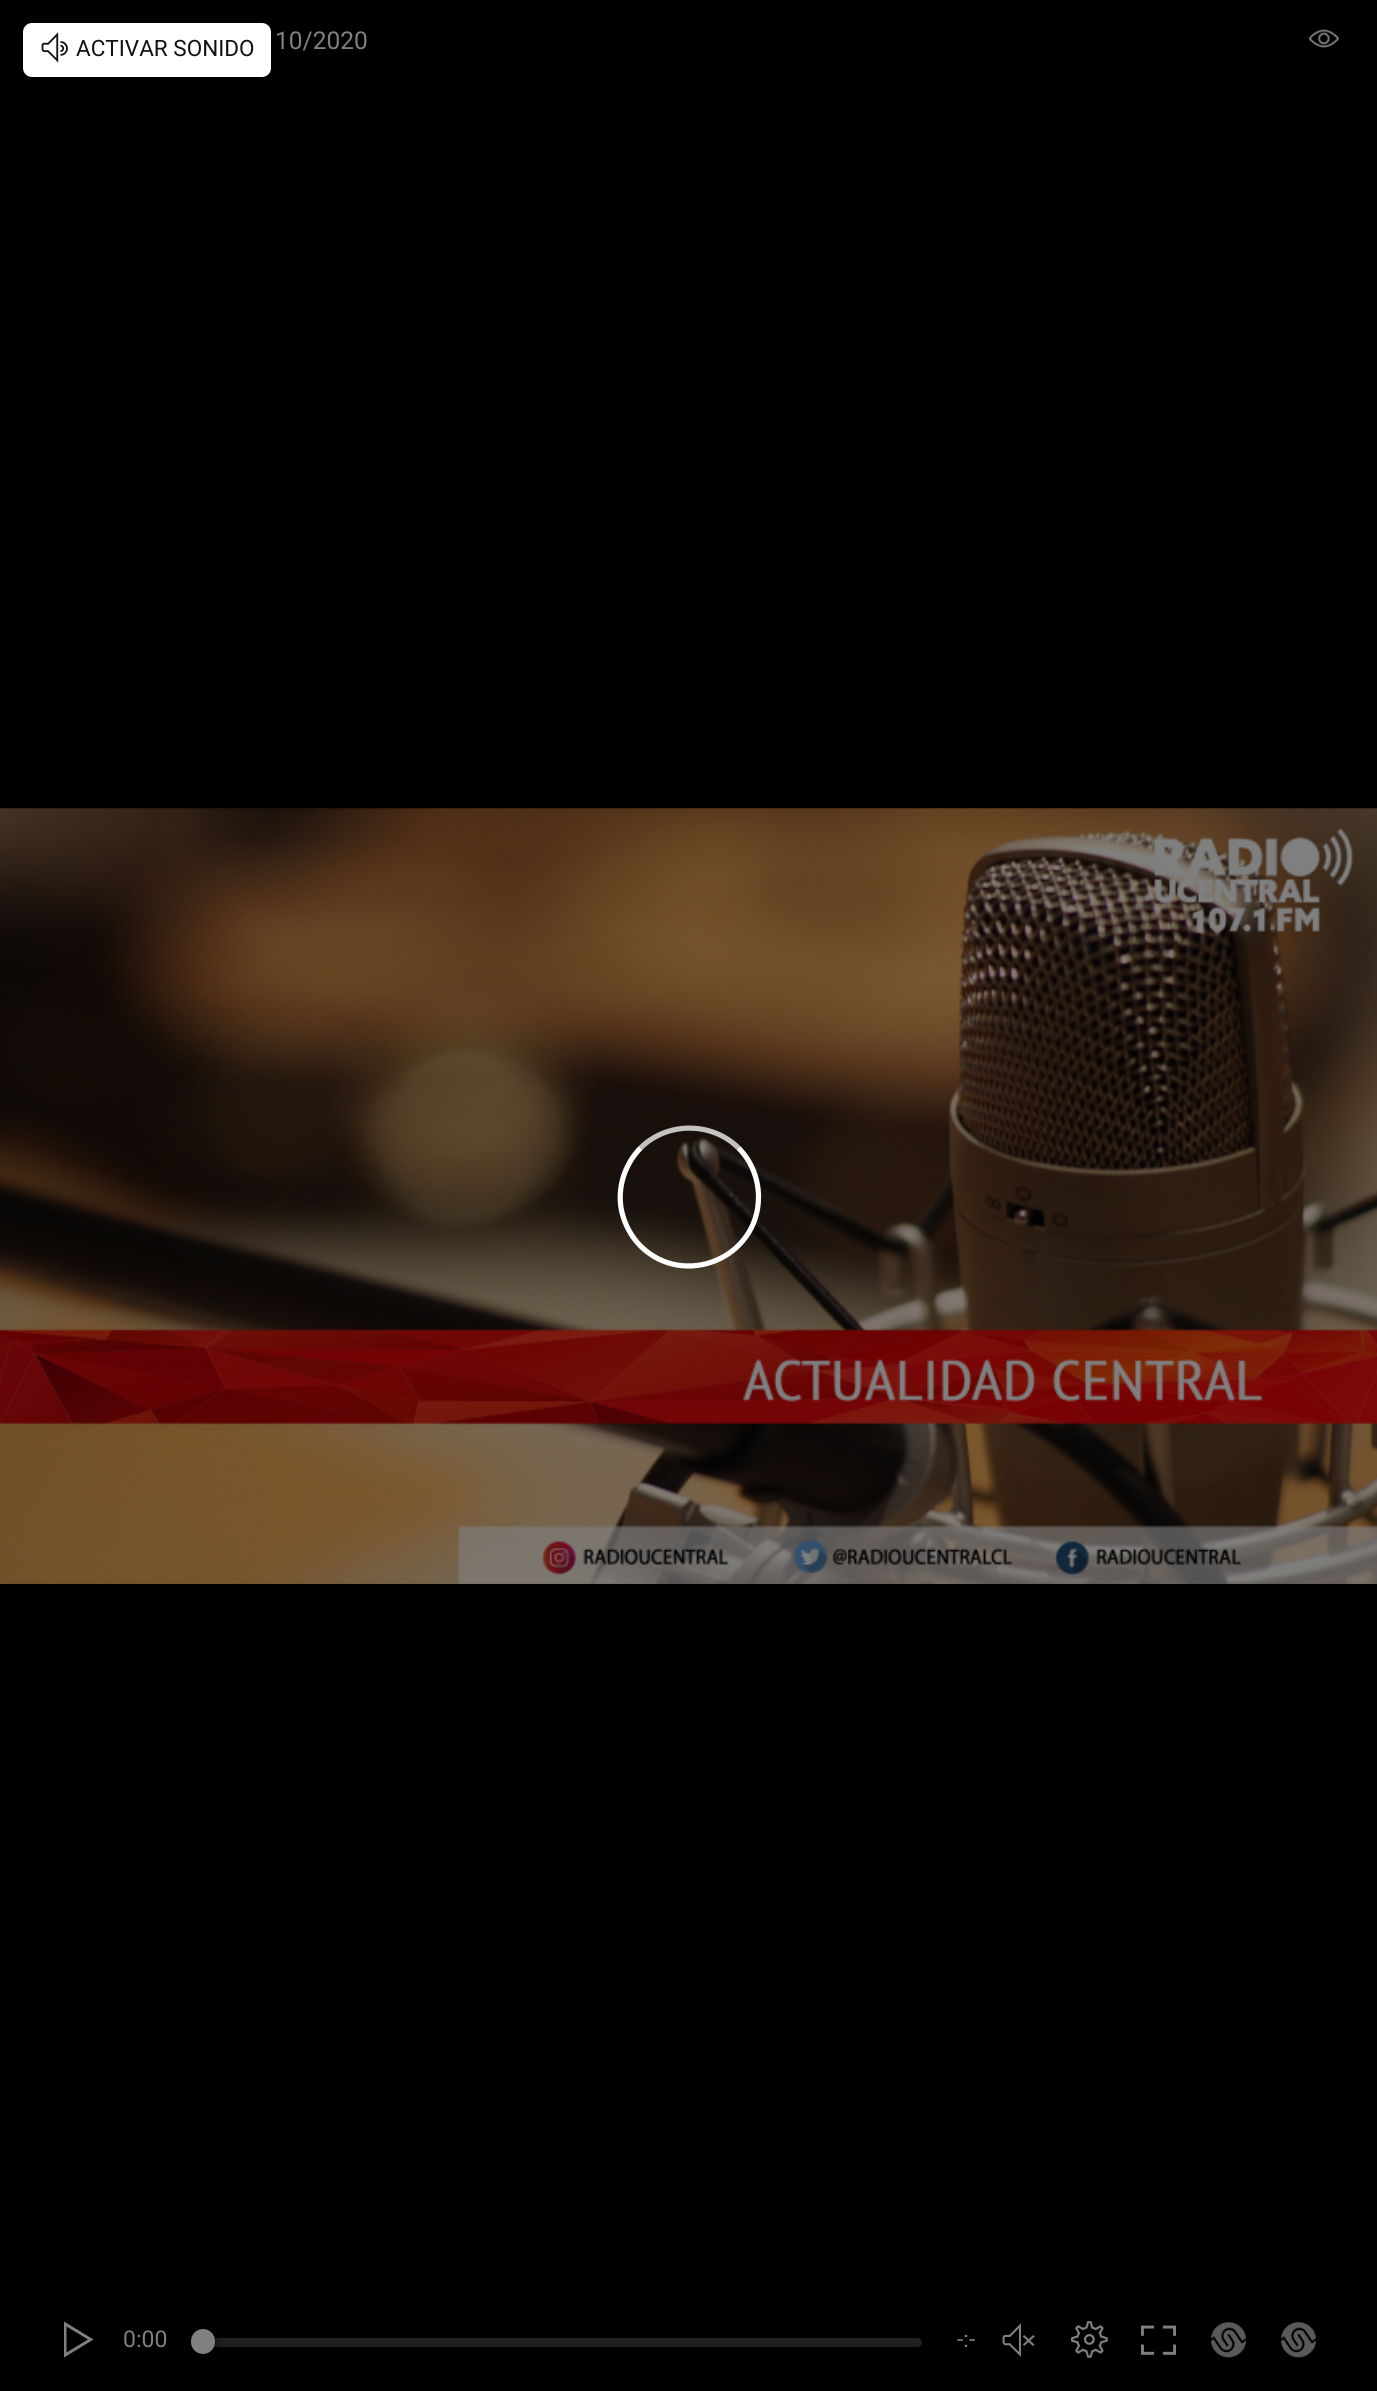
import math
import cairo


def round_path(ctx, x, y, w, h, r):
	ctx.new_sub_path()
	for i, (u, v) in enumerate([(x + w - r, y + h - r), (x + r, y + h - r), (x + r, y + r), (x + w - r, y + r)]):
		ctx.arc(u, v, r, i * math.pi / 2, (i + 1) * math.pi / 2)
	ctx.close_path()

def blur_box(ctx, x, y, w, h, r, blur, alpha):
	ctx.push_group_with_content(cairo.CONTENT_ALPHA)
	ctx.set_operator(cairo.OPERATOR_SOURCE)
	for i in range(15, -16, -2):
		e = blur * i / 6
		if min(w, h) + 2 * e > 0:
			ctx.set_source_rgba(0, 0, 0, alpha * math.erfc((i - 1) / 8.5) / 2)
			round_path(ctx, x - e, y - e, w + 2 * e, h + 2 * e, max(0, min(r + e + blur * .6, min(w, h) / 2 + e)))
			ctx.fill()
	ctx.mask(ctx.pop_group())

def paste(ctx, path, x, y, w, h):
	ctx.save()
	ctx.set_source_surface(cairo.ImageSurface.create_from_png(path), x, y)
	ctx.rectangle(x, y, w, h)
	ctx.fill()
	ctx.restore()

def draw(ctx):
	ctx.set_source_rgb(0, 0, 0)
	ctx.paint()
	ctx.select_font_face('Roboto')
	ctx.set_font_size(24.5)
	ctx.set_source_rgb(0.502, 0.502, 0.502)
	ctx.move_to(275, 49)
	ctx.show_text('10/2020')
	paste(ctx, 'media/1.png', 1309, 29, 30, 19)
	ctx.set_source_rgb(1, 1, 1)
	round_path(ctx, 23, 23, 248, 54, 9)
	ctx.fill()
	paste(ctx, 'media/2.png', 41, 32, 27, 31)
	ctx.set_font_size(22.5)
	ctx.set_source_rgb(0.071, 0.071, 0.071)
	ctx.move_to(76, 56)
	ctx.show_text('ACTIVAR SONIDO')
	paste(ctx, 'media/3.png', 0, 808, 1377, 776)
	paste(ctx, 'media/4.png', 0, 808, 1377, 776)
	ctx.new_path()
	ctx.move_to(640.5, 1148)
	ctx.curve_to(667, 1121.5, 712, 1121.5, 738.5, 1148)
	ctx.set_source_rgba(1, 1, 1, 0.75)
	ctx.set_line_width(5.2)
	ctx.stroke()
	ctx.new_path()
	ctx.move_to(738.5, 1148)
	ctx.curve_to(751.5, 1161, 758.5, 1179, 758.5, 1197)
	ctx.curve_to(758.5, 1258, 684, 1289, 640.5, 1246)
	ctx.curve_to(631, 1236.5, 624.5, 1224, 621.5, 1210.5)
	ctx.curve_to(617, 1188, 624.5, 1164.5, 640.5, 1148)
	ctx.set_source_rgb(1, 1, 1)
	ctx.stroke()
	ctx.set_source_rgb(0.502, 0.502, 0.502)
	ctx.new_path()
	ctx.move_to(64, 2321.5)
	ctx.line_to(64, 2357.5)
	ctx.line_to(93.5, 2339.5)
	ctx.close_path()
	ctx.move_to(66.5, 2326.5)
	ctx.line_to(88, 2339.5)
	ctx.line_to(66.5, 2352.5)
	ctx.close_path()
	ctx.fill()
	ctx.set_font_size(23)
	ctx.move_to(123, 2347)
	ctx.show_text('0:00')
	ctx.set_source_rgb(0.125, 0.125, 0.125)
	round_path(ctx, 201, 2338, 721, 9, 4.5)
	ctx.fill()
	ctx.set_source_rgb(0, 0, 0)
	blur_box(ctx, 191, 2329, 24, 25, 12, 5, 0.66)
	ctx.set_source_rgb(0.502, 0.502, 0.502)
	round_path(ctx, 191, 2329, 24, 25, 12)
	ctx.fill()
	ctx.move_to(957, 2347)
	ctx.show_text('-:-')
	paste(ctx, 'media/5.png', 1002, 2323, 33, 34)
	paste(ctx, 'media/6.png', 1071, 2321, 37, 37)
	paste(ctx, 'media/7.png', 1141, 2325, 35, 30)
	paste(ctx, 'media/8.png', 1211, 2322, 35, 36)
	paste(ctx, 'media/9.png', 1281, 2322, 35, 36)


surface = cairo.ImageSurface(cairo.FORMAT_RGB24, 1377, 2391)
ctx = cairo.Context(surface)
options = cairo.FontOptions()
options.set_hint_metrics(cairo.HINT_METRICS_OFF)
options.set_hint_style(cairo.HINT_STYLE_NONE)
ctx.set_font_options(options)
ctx.set_miter_limit(4)
draw(ctx)
surface.write_to_png('image.png')
